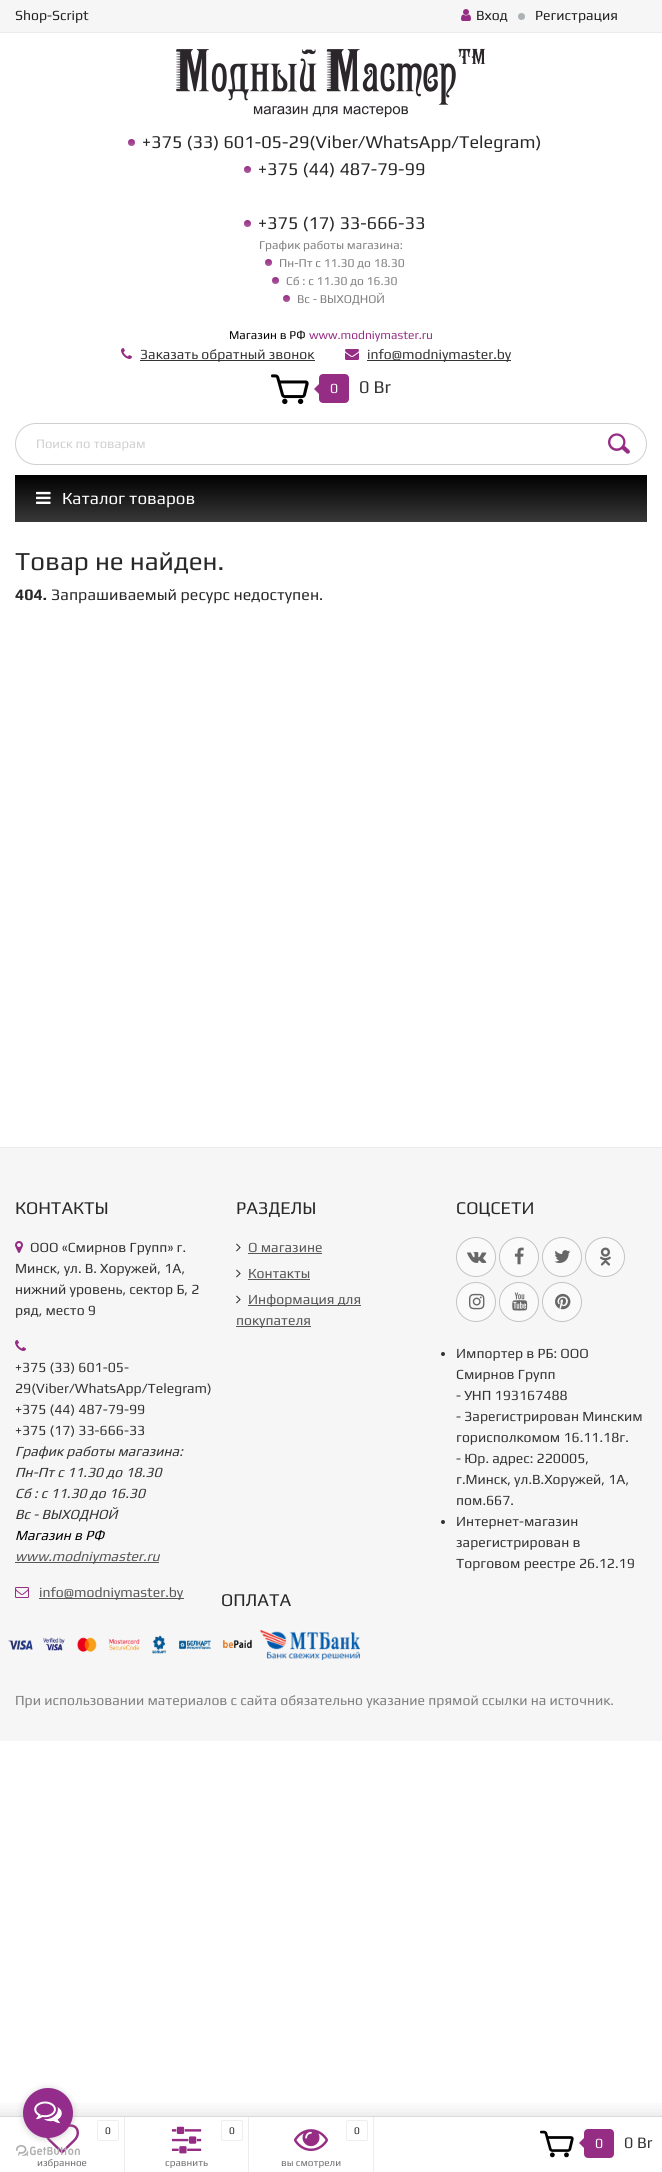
import math
import cairo


def round_path(ctx, x, y, w, h, r):
	ctx.new_sub_path()
	for i, (u, v) in enumerate([(x + w - r, y + h - r), (x + r, y + h - r), (x + r, y + r), (x + w - r, y + r)]):
		ctx.arc(u, v, r, i * math.pi / 2, (i + 1) * math.pi / 2)
	ctx.close_path()

def blur_box(ctx, x, y, w, h, r, blur, alpha):
	ctx.push_group_with_content(cairo.CONTENT_ALPHA)
	ctx.set_operator(cairo.OPERATOR_SOURCE)
	for i in range(15, -16, -2):
		e = blur * i / 6
		if min(w, h) + 2 * e > 0:
			ctx.set_source_rgba(0, 0, 0, alpha * math.erfc((i - 1) / 8.5) / 2)
			round_path(ctx, x - e, y - e, w + 2 * e, h + 2 * e, max(0, min(r + e + blur * .6, min(w, h) / 2 + e)))
			ctx.fill()
	ctx.mask(ctx.pop_group())

def paste(ctx, path, x, y, w, h):
	ctx.save()
	ctx.set_source_surface(cairo.ImageSurface.create_from_png(path), x, y)
	ctx.rectangle(x, y, w, h)
	ctx.fill()
	ctx.restore()

def draw(ctx):
	ctx.set_source_rgb(1, 1, 1)
	ctx.paint()
	ctx.set_source_rgb(0.961, 0.961, 0.961)
	ctx.rectangle(0, 0, 662, 32)
	ctx.fill()
	ctx.set_source_rgb(0.918, 0.918, 0.918)
	ctx.rectangle(0, 32, 662, 1)
	ctx.fill()
	ctx.select_font_face('Play')
	ctx.set_font_size(14)
	ctx.set_source_rgb(0.133, 0.133, 0.133)
	ctx.move_to(15, 20)
	ctx.show_text('Shop-Script')
	paste(ctx, 'media/1.png', 461, 9, 10, 12)
	ctx.move_to(476, 20)
	ctx.show_text('Вход')
	ctx.set_source_rgb(0.675, 0.702, 0.706)
	ctx.new_path()
	ctx.arc(521.5, 16.5, 3.5, 0, 2 * math.pi)
	ctx.fill()
	ctx.set_source_rgb(0.133, 0.133, 0.133)
	ctx.move_to(535, 20)
	ctx.show_text('Регистрация')
	paste(ctx, 'media/2.png', 176, 48, 310, 70)
	ctx.set_source_rgb(0.588, 0.176, 0.518)
	ctx.arc(131.5, 142.5, 3.5, 0, 2 * math.pi)
	ctx.fill()
	gradient = cairo.LinearGradient(132, 139, 132, 146)
	gradient.add_color_stop_rgba(0, 1, 1, 1, 0)
	gradient.add_color_stop_rgba(1, 1, 1, 1, 0.22)
	ctx.set_source(gradient)
	ctx.arc(131.5, 142.5, 3.5, 0, 2 * math.pi)
	ctx.fill()
	ctx.set_font_size(18)
	ctx.set_source_rgb(0.157, 0.157, 0.157)
	ctx.move_to(142, 148)
	ctx.show_text('+375 (33) 601-05-29(Viber/WhatsApp/Telegram)')
	ctx.set_source_rgb(0.588, 0.176, 0.518)
	ctx.new_path()
	ctx.arc(247.5, 169.5, 3.5, 0, 2 * math.pi)
	ctx.fill()
	gradient = cairo.LinearGradient(248, 166, 248, 173)
	gradient.add_color_stop_rgba(0, 1, 1, 1, 0)
	gradient.add_color_stop_rgba(1, 1, 1, 1, 0.22)
	ctx.set_source(gradient)
	ctx.arc(247.5, 169.5, 3.5, 0, 2 * math.pi)
	ctx.fill()
	ctx.set_source_rgb(0.157, 0.157, 0.157)
	ctx.move_to(258, 175)
	ctx.show_text('+375 (44) 487-79-99')
	ctx.set_source_rgb(0.588, 0.176, 0.518)
	ctx.new_path()
	ctx.arc(247.5, 223.5, 3.5, 0, 2 * math.pi)
	ctx.fill()
	gradient = cairo.LinearGradient(248, 220, 248, 227)
	gradient.add_color_stop_rgba(0, 1, 1, 1, 0)
	gradient.add_color_stop_rgba(1, 1, 1, 1, 0.22)
	ctx.set_source(gradient)
	ctx.arc(247.5, 223.5, 3.5, 0, 2 * math.pi)
	ctx.fill()
	ctx.set_source_rgb(0.157, 0.157, 0.157)
	ctx.move_to(258, 229)
	ctx.show_text('+375 (17) 33-666-33')
	ctx.set_font_size(12)
	ctx.set_source_rgb(0.498, 0.498, 0.498)
	ctx.move_to(259, 249)
	ctx.show_text('График работы магазина:')
	ctx.set_source_rgb(0.588, 0.176, 0.518)
	ctx.new_path()
	ctx.arc(268.5, 262.5, 3.5, 0, 2 * math.pi)
	ctx.fill()
	gradient = cairo.LinearGradient(269, 259, 269, 266)
	gradient.add_color_stop_rgba(0, 1, 1, 1, 0)
	gradient.add_color_stop_rgba(1, 1, 1, 1, 0.22)
	ctx.set_source(gradient)
	ctx.arc(268.5, 262.5, 3.5, 0, 2 * math.pi)
	ctx.fill()
	ctx.set_source_rgb(0.498, 0.498, 0.498)
	ctx.move_to(279, 267)
	ctx.show_text('Пн-Пт с 11.30 до 18.30')
	ctx.set_source_rgb(0.588, 0.176, 0.518)
	ctx.new_path()
	ctx.arc(275.5, 280.5, 3.5, 0, 2 * math.pi)
	ctx.fill()
	gradient = cairo.LinearGradient(276, 277, 276, 284)
	gradient.add_color_stop_rgba(0, 1, 1, 1, 0)
	gradient.add_color_stop_rgba(1, 1, 1, 1, 0.22)
	ctx.set_source(gradient)
	ctx.arc(275.5, 280.5, 3.5, 0, 2 * math.pi)
	ctx.fill()
	ctx.set_source_rgb(0.498, 0.498, 0.498)
	ctx.move_to(286, 285)
	ctx.show_text('Сб : с 11.30 до 16.30')
	ctx.set_source_rgb(0.588, 0.176, 0.518)
	ctx.new_path()
	ctx.arc(286.5, 298.5, 3.5, 0, 2 * math.pi)
	ctx.fill()
	gradient = cairo.LinearGradient(287, 295, 287, 302)
	gradient.add_color_stop_rgba(0, 1, 1, 1, 0)
	gradient.add_color_stop_rgba(1, 1, 1, 1, 0.22)
	ctx.set_source(gradient)
	ctx.arc(286.5, 298.5, 3.5, 0, 2 * math.pi)
	ctx.fill()
	ctx.set_source_rgb(0.498, 0.498, 0.498)
	ctx.move_to(297, 303)
	ctx.show_text('Вс - ВЫХОДНОЙ')
	ctx.set_source_rgb(0, 0, 0)
	ctx.move_to(229, 339)
	ctx.show_text('Магазин в РФ')
	ctx.set_source_rgb(0.588, 0.176, 0.518)
	ctx.move_to(309, 339)
	ctx.show_text('www.modniymaster.ru')
	paste(ctx, 'media/3.png', 121, 348, 11, 11)
	ctx.set_source_rgb(0.204, 0.204, 0.204)
	ctx.rectangle(140, 360, 175, 1)
	ctx.fill()
	ctx.set_font_size(14)
	ctx.move_to(140, 359)
	ctx.show_text('Заказать обратный звонок')
	paste(ctx, 'media/4.png', 345, 349, 14, 11)
	ctx.rectangle(367, 360, 144, 1)
	ctx.fill()
	ctx.move_to(367, 359)
	ctx.show_text('info@modniymaster.by')
	paste(ctx, 'media/5.png', 271, 374, 38, 31)
	ctx.set_source_rgb(0.588, 0.176, 0.518)
	round_path(ctx, 321, 376, 26, 25, 2)
	ctx.fill_preserve()
	ctx.set_line_width(4)
	ctx.stroke()
	ctx.new_path()
	ctx.move_to(323, 380)
	ctx.line_to(323, 398)
	ctx.line_to(314, 389)
	ctx.close_path()
	ctx.fill()
	ctx.set_source_rgb(1, 1, 1)
	ctx.move_to(330, 393)
	ctx.show_text('0')
	ctx.set_font_size(18)
	ctx.set_source_rgb(0.204, 0.204, 0.204)
	ctx.move_to(359, 393)
	ctx.show_text('0 Br')
	round_path(ctx, 15.5, 423.5, 631, 41, 20.5)
	ctx.set_source_rgb(0.816, 0.812, 0.812)
	ctx.set_line_width(1)
	ctx.stroke()
	ctx.set_font_size(13)
	ctx.set_source_rgb(0.812, 0.812, 0.812)
	ctx.move_to(36, 448)
	ctx.show_text('Поиск по товарам')
	paste(ctx, 'media/6.png', 608, 433, 22, 21)
	gradient = cairo.LinearGradient(331, 475, 331, 522)
	gradient.add_color_stop_rgba(0, 0, 0, 0, 1)
	gradient.add_color_stop_rgba(1, 0.22, 0.22, 0.22, 1)
	ctx.set_source(gradient)
	ctx.rectangle(15, 475, 632, 47)
	ctx.fill()
	paste(ctx, 'media/7.png', 36, 491, 15, 13)
	ctx.set_font_size(17)
	ctx.set_source_rgb(1, 1, 1)
	ctx.move_to(62, 504)
	ctx.show_text('Каталог товаров')
	ctx.set_font_size(26)
	ctx.set_source_rgb(0.157, 0.157, 0.157)
	ctx.move_to(15, 570)
	ctx.show_text('Товар не найден.')
	ctx.select_font_face('Play', cairo.FONT_SLANT_NORMAL, cairo.FONT_WEIGHT_BOLD)
	ctx.set_font_size(16)
	ctx.move_to(15, 600)
	ctx.show_text('404.')
	ctx.select_font_face('Play')
	ctx.move_to(51, 600)
	ctx.show_text('Запрашиваемый ресурс недоступен.')
	ctx.set_source_rgb(0.961, 0.961, 0.961)
	ctx.rectangle(0, 1148, 662, 593)
	ctx.fill()
	ctx.set_source_rgb(0.918, 0.918, 0.918)
	ctx.rectangle(0, 1147, 662, 1)
	ctx.fill()
	ctx.set_font_size(18)
	ctx.set_source_rgb(0.157, 0.157, 0.157)
	ctx.move_to(15, 1214)
	ctx.show_text('КОНТАКТЫ')
	paste(ctx, 'media/8.png', 15, 1241, 8, 12)
	ctx.set_font_size(14)
	ctx.set_source_rgb(0.204, 0.204, 0.204)
	for x, y, s in [
		(30, 1252, 'ООО «Смирнов Групп» г.'),
		(15, 1273, 'Минск, ул. В. Хоружей, 1А,'),
		(15, 1294, 'нижний уровень, сектор Б, 2'),
		(15, 1315, 'ряд, место 9'),
	]:
		ctx.move_to(x, y)
		ctx.show_text(s)
	paste(ctx, 'media/9.png', 15, 1340, 11, 11)
	for x, y, s in [
		(15, 1372, '+375 (33) 601-05-'),
		(15, 1393, '29(Viber/WhatsApp/Telegram)'),
		(15, 1414, '+375 (44) 487-79-99'),
		(15, 1435, '+375 (17) 33-666-33'),
	]:
		ctx.move_to(x, y)
		ctx.show_text(s)
	ctx.select_font_face('Play', cairo.FONT_SLANT_ITALIC)
	for x, y, s in [
		(15, 1456, 'График работы магазина:'),
		(15, 1477, 'Пн-Пт с 11.30 до 18.30'),
		(15, 1498, 'Сб : с 11.30 до 16.30'),
		(15, 1519, 'Вс - ВЫХОДНОЙ'),
	]:
		ctx.move_to(x, y)
		ctx.show_text(s)
	ctx.set_source_rgb(0, 0, 0)
	ctx.move_to(15, 1540)
	ctx.show_text('Магазин в РФ')
	ctx.set_source_rgb(0.341, 0.341, 0.341)
	ctx.rectangle(15, 1562, 144, 1)
	ctx.fill()
	ctx.move_to(15, 1561)
	ctx.show_text('www.modniymaster.ru')
	paste(ctx, 'media/10.png', 15, 1587, 14, 11)
	ctx.rectangle(39, 1598, 145, 1)
	ctx.fill()
	ctx.select_font_face('Play')
	ctx.move_to(39, 1597)
	ctx.show_text('info@modniymaster.by')
	ctx.set_font_size(18)
	ctx.set_source_rgb(0.157, 0.157, 0.157)
	ctx.move_to(236, 1214)
	ctx.show_text('РАЗДЕЛЫ')
	paste(ctx, 'media/11.png', 236, 1243, 5, 9)
	ctx.set_font_size(14)
	ctx.set_source_rgb(0.341, 0.341, 0.341)
	ctx.move_to(248, 1252)
	ctx.show_text('О магазине')
	ctx.rectangle(248, 1253, 74, 1)
	ctx.fill()
	paste(ctx, 'media/11.png', 236, 1269, 5, 9)
	ctx.move_to(248, 1278)
	ctx.show_text('Контакты')
	ctx.rectangle(248, 1279, 62, 1)
	ctx.fill()
	paste(ctx, 'media/11.png', 236, 1295, 5, 9)
	ctx.rectangle(248, 1305, 113, 1)
	ctx.fill()
	ctx.move_to(248, 1304)
	ctx.show_text('Информация для')
	ctx.rectangle(236, 1326, 75, 1)
	ctx.fill()
	ctx.move_to(236, 1325)
	ctx.show_text('покупателя')
	ctx.set_font_size(18)
	ctx.set_source_rgb(0.157, 0.157, 0.157)
	ctx.move_to(456, 1214)
	ctx.show_text('СОЦСЕТИ')
	ctx.set_source_rgb(0.98, 0.98, 0.98)
	ctx.new_path()
	ctx.arc(476, 1257, 19.5, 0, 2 * math.pi)
	ctx.fill_preserve()
	ctx.set_source_rgb(0.769, 0.769, 0.769)
	ctx.stroke()
	paste(ctx, 'media/12.png', 467, 1252, 20, 11)
	ctx.set_source_rgb(0.98, 0.98, 0.98)
	ctx.arc(519, 1257, 19.5, 0, 2 * math.pi)
	ctx.fill_preserve()
	ctx.set_source_rgb(0.769, 0.769, 0.769)
	ctx.stroke()
	paste(ctx, 'media/13.png', 514, 1247, 10, 18)
	ctx.set_source_rgb(0.98, 0.98, 0.98)
	ctx.arc(562, 1257, 19.5, 0, 2 * math.pi)
	ctx.fill_preserve()
	ctx.set_source_rgb(0.769, 0.769, 0.769)
	ctx.stroke()
	paste(ctx, 'media/14.png', 554, 1250, 17, 13)
	ctx.set_source_rgb(0.98, 0.98, 0.98)
	ctx.arc(605, 1257, 19.5, 0, 2 * math.pi)
	ctx.fill_preserve()
	ctx.set_source_rgb(0.769, 0.769, 0.769)
	ctx.stroke()
	paste(ctx, 'media/15.png', 600, 1247, 11, 19)
	ctx.set_source_rgb(0.98, 0.98, 0.98)
	ctx.arc(476, 1302, 19.5, 0, 2 * math.pi)
	ctx.fill_preserve()
	ctx.set_source_rgb(0.769, 0.769, 0.769)
	ctx.stroke()
	paste(ctx, 'media/16.png', 469, 1293, 16, 17)
	ctx.set_source_rgb(0.98, 0.98, 0.98)
	ctx.arc(519, 1302, 19.5, 0, 2 * math.pi)
	ctx.fill_preserve()
	ctx.set_source_rgb(0.769, 0.769, 0.769)
	ctx.stroke()
	paste(ctx, 'media/17.png', 512, 1292, 16, 19)
	ctx.set_source_rgb(0.98, 0.98, 0.98)
	ctx.arc(562, 1302, 19.5, 0, 2 * math.pi)
	ctx.fill_preserve()
	ctx.set_source_rgb(0.769, 0.769, 0.769)
	ctx.stroke()
	paste(ctx, 'media/18.png', 555, 1293, 16, 17)
	ctx.set_source_rgb(0.2, 0.2, 0.2)
	ctx.arc(443, 1354, 2, 0, 2 * math.pi)
	ctx.fill()
	ctx.set_font_size(14)
	ctx.set_source_rgb(0.204, 0.204, 0.204)
	for x, y, s in [
		(456, 1358, 'Импортер в РБ: ООО'),
		(456, 1379, 'Смирнов Групп'),
		(456, 1400, '- УНП 193167488'),
		(456, 1421, '- Зарегистрирован Минским'),
		(456, 1442, 'горисполкомом 16.11.18г.'),
		(456, 1463, '- Юр. адрес: 220005,'),
		(456, 1484, 'г.Минск, ул.В.Хоружей, 1А,'),
		(456, 1505, 'пом.667.'),
	]:
		ctx.move_to(x, y)
		ctx.show_text(s)
	ctx.set_source_rgb(0.2, 0.2, 0.2)
	ctx.new_path()
	ctx.arc(443, 1522, 2, 0, 2 * math.pi)
	ctx.fill()
	ctx.set_source_rgb(0.204, 0.204, 0.204)
	for x, y, s in [
		(456, 1526, 'Интернет-магазин'),
		(456, 1547, 'зарегистрирован в'),
		(456, 1568, 'Торговом реестре 26.12.19'),
	]:
		ctx.move_to(x, y)
		ctx.show_text(s)
	ctx.set_font_size(18)
	ctx.set_source_rgb(0.157, 0.157, 0.157)
	ctx.move_to(221, 1606)
	ctx.show_text('ОПЛАТА')
	paste(ctx, 'media/19.png', 8, 1635, 244, 19)
	paste(ctx, 'media/20.png', 260, 1630, 100, 30)
	ctx.set_font_size(14)
	ctx.set_source_rgb(0.498, 0.498, 0.498)
	ctx.move_to(15, 1705)
	ctx.show_text('При использовании материалов с сайта обязательно указание прямой ссылки на источник.')
	ctx.save()
	ctx.rectangle(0, 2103, 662, 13)
	ctx.clip()
	ctx.set_source_rgb(0.196, 0.196, 0.196)
	blur_box(ctx, -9, 2114, 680, 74, 0, 10, 0.15)
	ctx.restore()
	paste(ctx, 'media/23.png', 46, 2124, 33, 30)
	paste(ctx, 'media/22.png', 16, 2145, 64, 11)
	ctx.set_source_rgb(0.859, 0.859, 0.859)
	ctx.rectangle(0, 2116, 662, 1)
	ctx.fill()
	ctx.set_source_rgb(0.533, 0.533, 0.533)
	blur_box(ctx, 23, 2089, 50, 50, 25, 3.5, 0.4)
	ctx.set_source_rgb(0.576, 0.173, 0.545)
	ctx.arc(48, 2113, 25, 0, 2 * math.pi)
	ctx.fill()
	paste(ctx, 'media/21.png', 34, 2101, 28, 23)
	ctx.set_source_rgb(0.929, 0.929, 0.929)
	ctx.rectangle(124, 2117, 1, 55)
	ctx.fill()
	round_path(ctx, 97.5, 2120.5, 21, 20, 1.5)
	ctx.set_source_rgb(0.933, 0.933, 0.933)
	ctx.stroke()
	ctx.set_font_size(10)
	ctx.set_source_rgb(0.133, 0.133, 0.133)
	ctx.move_to(105, 2134)
	ctx.show_text('0')
	ctx.set_source_rgb(0.435, 0.435, 0.435)
	ctx.move_to(37, 2166)
	ctx.show_text('избранное')
	ctx.set_source_rgb(0.929, 0.929, 0.929)
	ctx.rectangle(248, 2117, 1, 55)
	ctx.fill()
	paste(ctx, 'media/24.png', 172, 2126, 30, 28)
	round_path(ctx, 221.5, 2120.5, 21, 20, 1.5)
	ctx.set_source_rgb(0.933, 0.933, 0.933)
	ctx.stroke()
	ctx.set_source_rgb(0.133, 0.133, 0.133)
	ctx.move_to(229, 2134)
	ctx.show_text('0')
	ctx.set_source_rgb(0.435, 0.435, 0.435)
	ctx.move_to(165, 2166)
	ctx.show_text('сравнить')
	ctx.set_source_rgb(0.929, 0.929, 0.929)
	ctx.rectangle(373, 2117, 1, 55)
	ctx.fill()
	paste(ctx, 'media/25.png', 294, 2129, 34, 22)
	round_path(ctx, 346.5, 2120.5, 21, 20, 1.5)
	ctx.set_source_rgb(0.933, 0.933, 0.933)
	ctx.stroke()
	ctx.set_source_rgb(0.133, 0.133, 0.133)
	ctx.move_to(354, 2134)
	ctx.show_text('0')
	ctx.set_source_rgb(0.435, 0.435, 0.435)
	ctx.move_to(281, 2166)
	ctx.show_text('вы смотрели')
	paste(ctx, 'media/26.png', 540, 2130, 34, 28)
	ctx.set_source_rgb(0.588, 0.176, 0.518)
	round_path(ctx, 586, 2131, 26, 25, 2)
	ctx.fill_preserve()
	ctx.set_line_width(4)
	ctx.stroke()
	ctx.new_path()
	ctx.move_to(588, 2134)
	ctx.line_to(588, 2152)
	ctx.line_to(579, 2143)
	ctx.close_path()
	ctx.fill()
	ctx.set_font_size(14)
	ctx.set_source_rgb(1, 1, 1)
	ctx.move_to(595, 2148)
	ctx.show_text('0')
	ctx.set_font_size(16)
	ctx.set_source_rgb(0.204, 0.204, 0.204)
	ctx.move_to(624, 2148)
	ctx.show_text('0 Br')


surface = cairo.ImageSurface(cairo.FORMAT_RGB24, 662, 2172)
ctx = cairo.Context(surface)
options = cairo.FontOptions()
options.set_hint_metrics(cairo.HINT_METRICS_OFF)
options.set_hint_style(cairo.HINT_STYLE_NONE)
ctx.set_font_options(options)
ctx.set_miter_limit(4)
draw(ctx)
surface.write_to_png('image.png')
